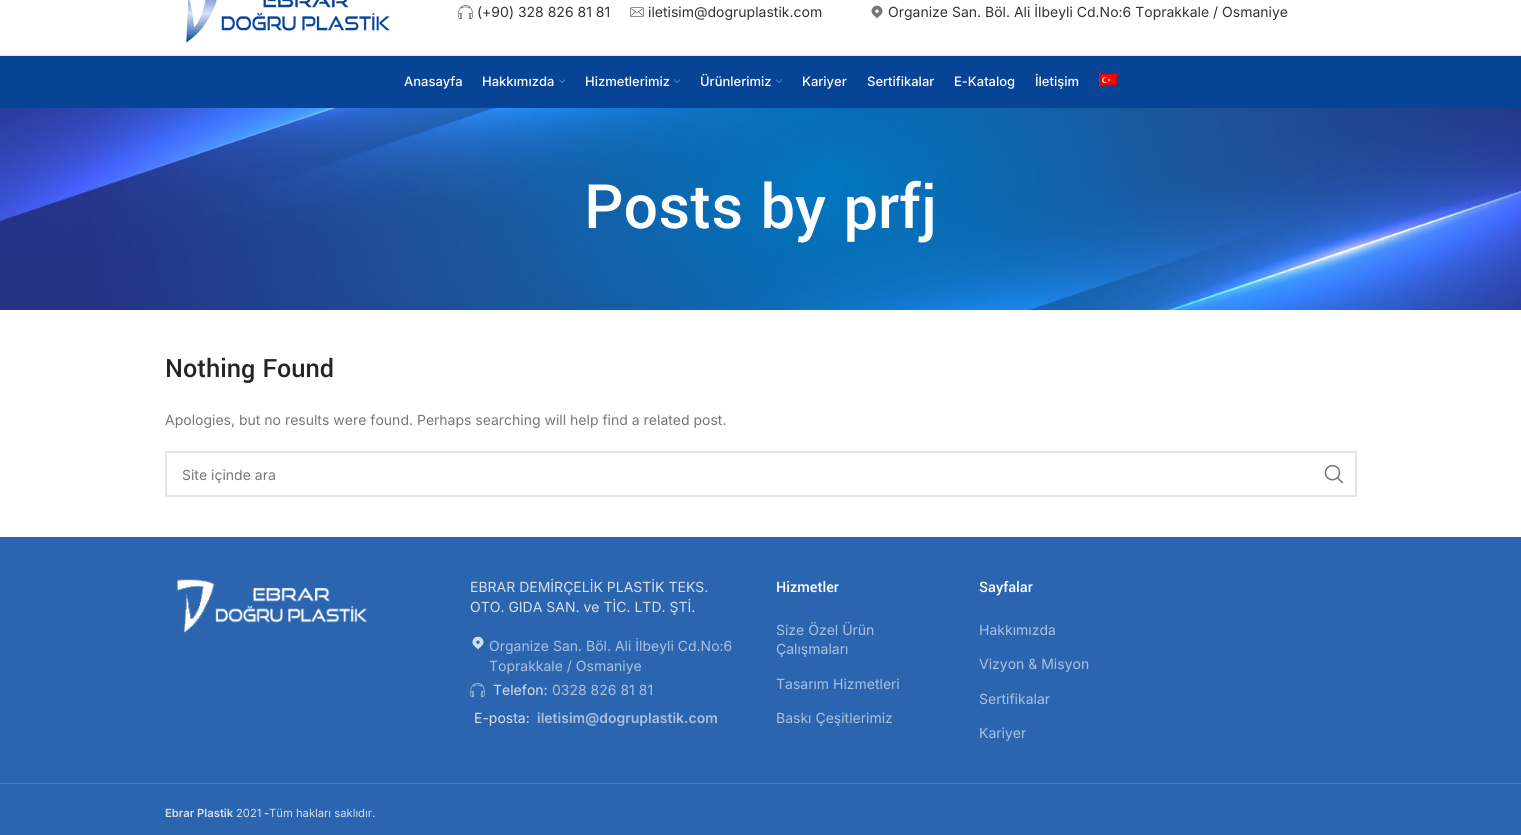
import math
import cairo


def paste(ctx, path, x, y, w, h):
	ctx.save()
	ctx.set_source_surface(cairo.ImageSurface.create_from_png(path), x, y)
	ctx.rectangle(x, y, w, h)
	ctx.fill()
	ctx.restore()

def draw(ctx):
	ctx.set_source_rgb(1, 1, 1)
	ctx.paint()
	ctx.set_source_rgb(0.91, 0.91, 0.91)
	ctx.rectangle(0, 55, 1521, 1)
	ctx.fill()
	paste(ctx, 'media/1.png', 186, 0, 204, 43)
	paste(ctx, 'media/2.png', 458, 5, 15, 15)
	ctx.select_font_face('Inter')
	ctx.set_font_size(14)
	ctx.set_source_rgb(0.2, 0.2, 0.2)
	ctx.move_to(477, 17)
	ctx.show_text('(+90) 328 826 81 81')
	paste(ctx, 'media/3.png', 630, 7, 14, 10)
	ctx.move_to(648, 17)
	ctx.show_text('iletisim@dogruplastik.com')
	paste(ctx, 'media/4.png', 871, 5, 12, 14)
	ctx.move_to(888, 17)
	ctx.show_text('Organize San. Böl. Ali İlbeyli Cd.No:6 Toprakkale / Osmaniye')
	ctx.set_source_rgb(0.035, 0.267, 0.588)
	ctx.rectangle(0, 56, 1521, 52)
	ctx.fill()
	ctx.select_font_face('Inter Medium')
	ctx.set_font_size(13)
	ctx.set_source_rgb(1, 1, 1)
	ctx.move_to(404, 86)
	ctx.show_text('Anasayfa')
	ctx.move_to(482, 86)
	ctx.show_text('Hakkımızda')
	paste(ctx, 'media/5.png', 559, 79, 6, 4)
	ctx.move_to(585, 86)
	ctx.show_text('Hizmetlerimiz')
	paste(ctx, 'media/5.png', 674, 79, 6, 4)
	ctx.move_to(700, 86)
	ctx.show_text('Ürünlerimiz')
	paste(ctx, 'media/5.png', 776, 79, 6, 4)
	for x, y, s in [
		(802, 86, 'Kariyer'),
		(867, 86, 'Sertifikalar'),
		(954, 86, 'E-Katalog'),
		(1035, 86, 'İletişim'),
	]:
		ctx.move_to(x, y)
		ctx.show_text(s)
	paste(ctx, 'media/6.png', 1099, 74, 18, 12)
	paste(ctx, 'media/7.png', 0, 108, 1521, 202)
	ctx.select_font_face('Yantramanav Medium')
	ctx.set_font_size(68)
	ctx.move_to(584, 228)
	ctx.show_text('Posts by prfj')
	ctx.set_font_size(28)
	ctx.set_source_rgb(0.141, 0.141, 0.141)
	ctx.move_to(165, 377)
	ctx.show_text('Nothing Found')
	ctx.select_font_face('Inter')
	ctx.set_font_size(14)
	ctx.set_source_rgb(0.467, 0.467, 0.467)
	ctx.move_to(165, 425)
	ctx.show_text('Apologies, but no results were found. Perhaps searching will help find a related post.')
	ctx.rectangle(166, 452, 1190, 44)
	ctx.set_source_rgb(0.902, 0.902, 0.902)
	ctx.stroke()
	ctx.set_source_rgb(0.467, 0.467, 0.467)
	ctx.move_to(182, 480)
	ctx.show_text('Site içinde ara')
	paste(ctx, 'media/8.png', 1324, 464, 20, 20)
	ctx.set_source_rgb(0.173, 0.396, 0.686)
	ctx.rectangle(0, 537, 1521, 298)
	ctx.fill()
	paste(ctx, 'media/9.png', 176, 579, 191, 54)
	ctx.set_source_rgb(0.835, 0.878, 0.937)
	ctx.move_to(470, 592)
	ctx.show_text('EBRAR DEMİRÇELİK PLASTİK TEKS.')
	ctx.move_to(470, 612)
	ctx.show_text('OTO. GIDA SAN. ve TİC. LTD. ŞTİ.')
	paste(ctx, 'media/10.png', 472, 636, 12, 14)
	ctx.set_source_rgb(0.671, 0.757, 0.875)
	ctx.move_to(489, 651)
	ctx.show_text('Organize San. Böl. Ali İlbeyli Cd.No:6')
	ctx.move_to(489, 671)
	ctx.show_text('Toprakkale / Osmaniye')
	paste(ctx, 'media/11.png', 470, 683, 15, 15)
	ctx.set_source_rgb(0.835, 0.878, 0.937)
	ctx.move_to(493, 695)
	ctx.show_text('Telefon:')
	ctx.set_source_rgb(0.671, 0.757, 0.875)
	ctx.move_to(552, 695)
	ctx.show_text('0328 826 81 81')
	ctx.set_source_rgb(0.835, 0.878, 0.937)
	ctx.move_to(474, 723)
	ctx.show_text('E-posta:')
	ctx.select_font_face('Inter SemiBold')
	ctx.set_source_rgb(0.671, 0.757, 0.875)
	ctx.move_to(537, 723)
	ctx.show_text('iletisim@dogruplastik.com')
	ctx.select_font_face('Yantramanav Medium')
	ctx.set_font_size(16)
	ctx.set_source_rgb(1, 1, 1)
	ctx.move_to(776, 592)
	ctx.show_text('Hizmetler')
	ctx.select_font_face('Inter')
	ctx.set_font_size(14)
	ctx.set_source_rgb(0.671, 0.757, 0.875)
	for x, y, s in [
		(776, 635, 'Size Özel Ürün'),
		(776, 654, 'Çalışmaları'),
		(776, 689, 'Tasarım Hizmetleri'),
		(776, 723, 'Baskı Çeşitlerimiz'),
	]:
		ctx.move_to(x, y)
		ctx.show_text(s)
	ctx.select_font_face('Yantramanav Medium')
	ctx.set_font_size(16)
	ctx.set_source_rgb(1, 1, 1)
	ctx.move_to(979, 592)
	ctx.show_text('Sayfalar')
	ctx.select_font_face('Inter')
	ctx.set_font_size(14)
	ctx.set_source_rgb(0.671, 0.757, 0.875)
	for x, y, s in [
		(979, 635, 'Hakkımızda'),
		(979, 669, 'Vizyon & Misyon'),
		(979, 704, 'Sertifikalar'),
		(979, 738, 'Kariyer'),
	]:
		ctx.move_to(x, y)
		ctx.show_text(s)
	ctx.set_source_rgb(0.298, 0.486, 0.733)
	ctx.rectangle(0, 783, 1521, 1)
	ctx.fill()
	ctx.select_font_face('Inter SemiBold')
	ctx.set_font_size(11.25)
	ctx.set_source_rgb(0.835, 0.878, 0.937)
	ctx.move_to(165, 817)
	ctx.show_text('Ebrar Plastik')
	ctx.select_font_face('Inter')
	ctx.move_to(236, 817)
	ctx.show_text('2021')
	ctx.select_font_face('Inter SemiBold')
	ctx.move_to(264, 817)
	ctx.show_text('-')
	ctx.select_font_face('Inter')
	ctx.move_to(269, 817)
	ctx.show_text('Tüm hakları saklıdır.')


surface = cairo.ImageSurface(cairo.FORMAT_RGB24, 1521, 835)
ctx = cairo.Context(surface)
options = cairo.FontOptions()
options.set_hint_metrics(cairo.HINT_METRICS_OFF)
options.set_hint_style(cairo.HINT_STYLE_NONE)
ctx.set_font_options(options)
ctx.set_miter_limit(4)
draw(ctx)
surface.write_to_png('image.png')
